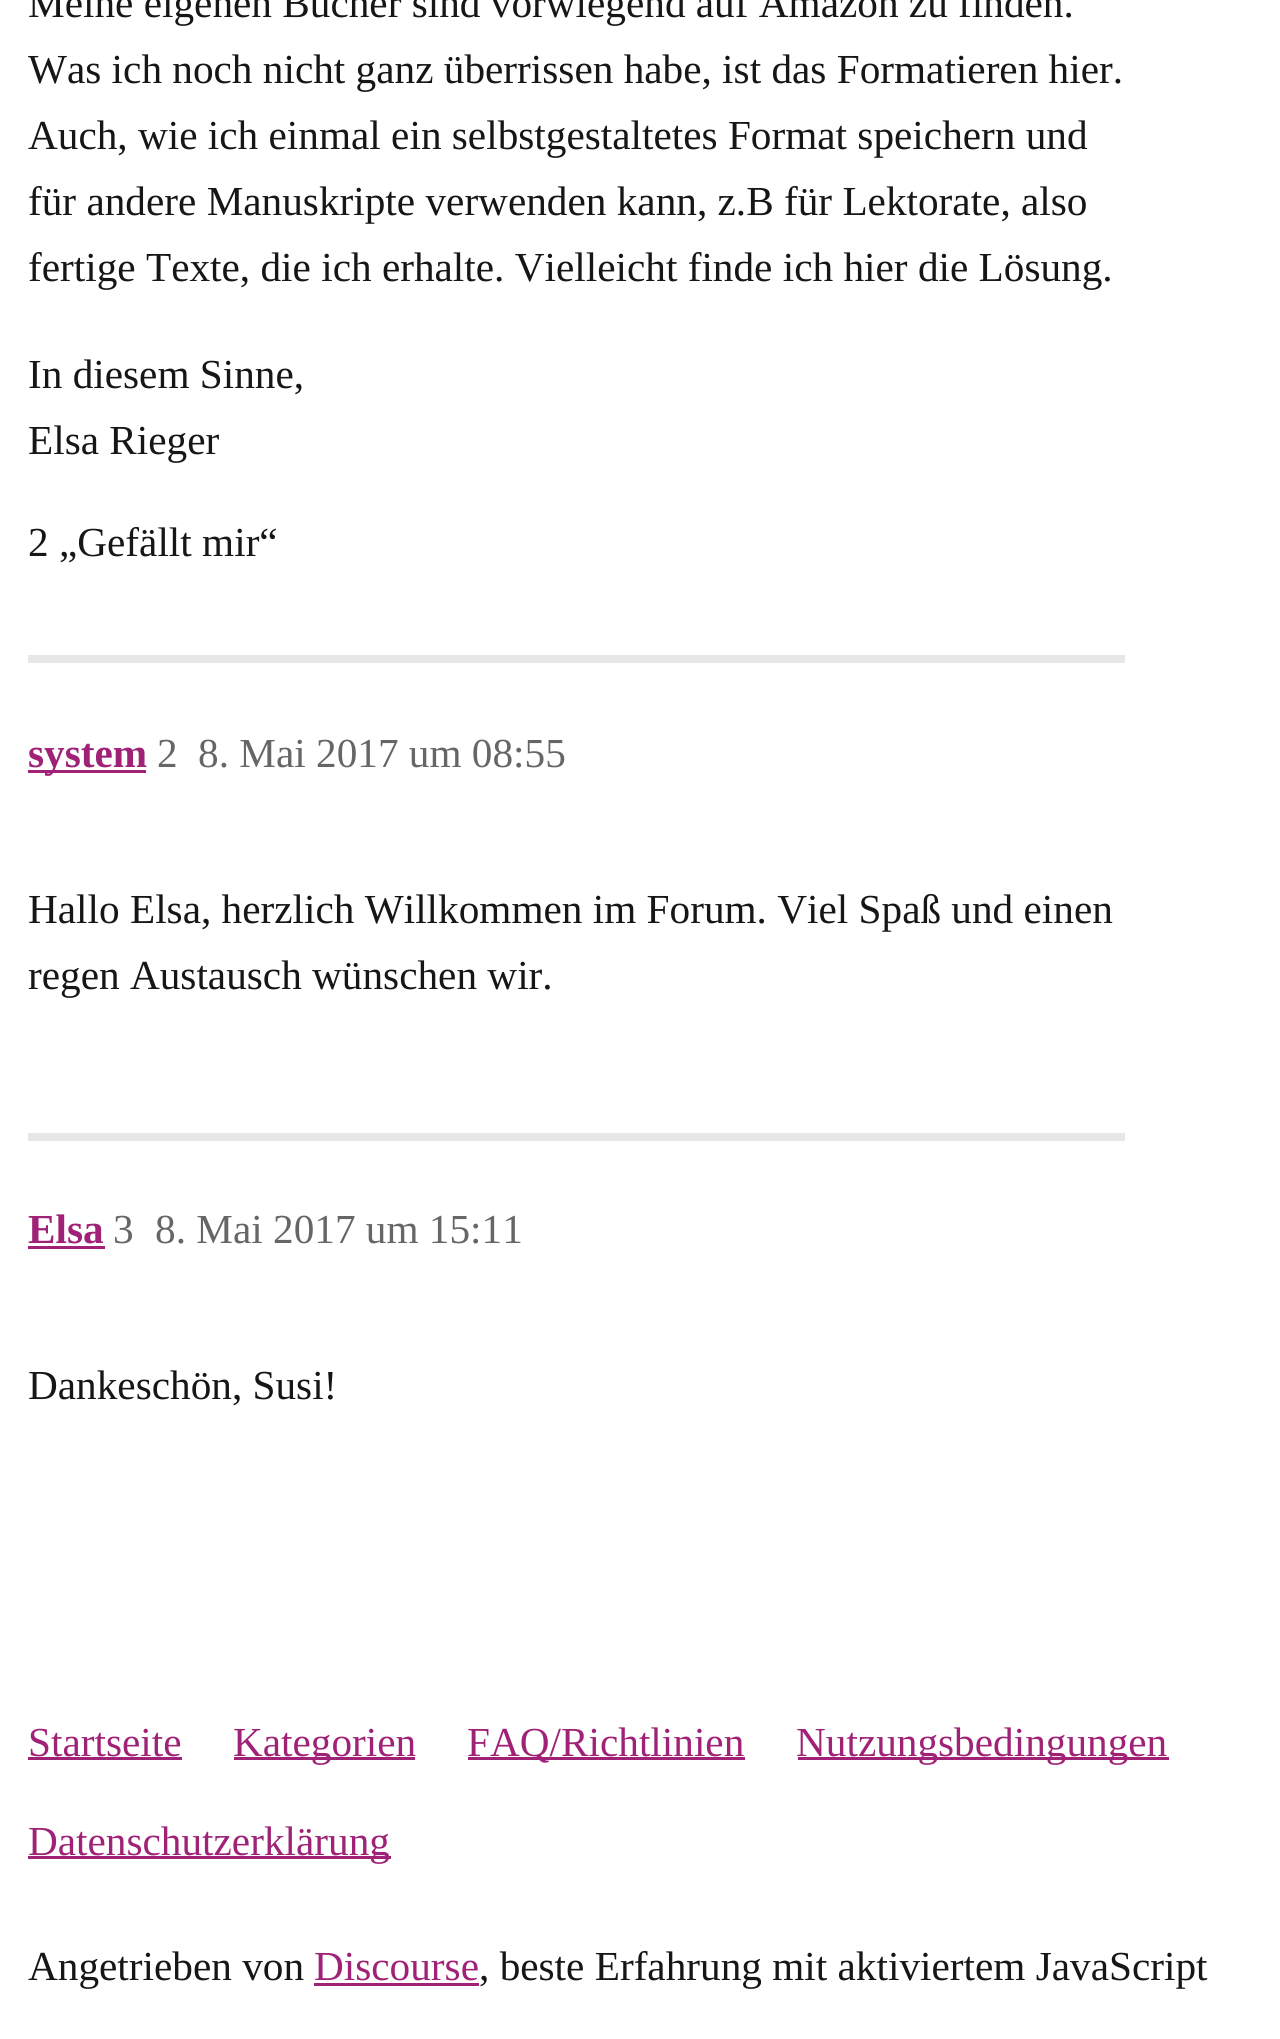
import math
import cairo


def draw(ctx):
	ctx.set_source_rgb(1, 1, 1)
	ctx.paint()
	ctx.select_font_face('Liberation Serif')
	ctx.set_font_size(41.25)
	ctx.set_source_rgb(0.086, 0.086, 0.09)
	for x, y, s in [
		(28, 17, 'Meine eigenen Bücher sind vorwiegend auf Amazon zu finden.'),
		(28, 83, 'Was ich noch nicht ganz überrissen habe, ist das Formatieren hier.'),
		(28, 149, 'Auch, wie ich einmal ein selbstgestaltetes Format speichern und'),
		(28, 215, 'für andere Manuskripte verwenden kann, z.B für Lektorate, also'),
		(28, 281, 'fertige Texte, die ich erhalte. Vielleicht finde ich hier die Lösung.'),
		(28, 388, 'In diesem Sinne,'),
		(28, 454, 'Elsa Rieger'),
		(28, 556, '2 „Gefällt mir“'),
	]:
		ctx.move_to(x, y)
		ctx.show_text(s)
	ctx.set_source_rgb(0.906, 0.906, 0.91)
	ctx.rectangle(28, 655, 1097, 8)
	ctx.fill()
	ctx.set_source_rgb(0.624, 0.133, 0.467)
	ctx.rectangle(28, 770, 118, 3)
	ctx.fill()
	ctx.select_font_face('Liberation Serif', cairo.FONT_SLANT_NORMAL, cairo.FONT_WEIGHT_BOLD)
	ctx.move_to(28, 767)
	ctx.show_text('system')
	ctx.select_font_face('Liberation Serif')
	ctx.set_source_rgb(0.4, 0.4, 0.4)
	ctx.move_to(157, 767)
	ctx.show_text('2')
	ctx.move_to(198, 767)
	ctx.show_text('8. Mai 2017 um 08:55')
	ctx.set_source_rgb(0.086, 0.086, 0.09)
	ctx.move_to(28, 923)
	ctx.show_text('Hallo Elsa, herzlich Willkommen im Forum. Viel Spaß und einen')
	ctx.move_to(28, 989)
	ctx.show_text('regen Austausch wünschen wir.')
	ctx.set_source_rgb(0.906, 0.906, 0.91)
	ctx.rectangle(28, 1133, 1097, 8)
	ctx.fill()
	ctx.select_font_face('Liberation Serif', cairo.FONT_SLANT_NORMAL, cairo.FONT_WEIGHT_BOLD)
	ctx.set_source_rgb(0.624, 0.133, 0.467)
	ctx.move_to(28, 1243)
	ctx.show_text('Elsa')
	ctx.rectangle(28, 1246, 77, 3)
	ctx.fill()
	ctx.select_font_face('Liberation Serif')
	ctx.set_source_rgb(0.4, 0.4, 0.4)
	ctx.move_to(113, 1243)
	ctx.show_text('3')
	ctx.move_to(155, 1243)
	ctx.show_text('8. Mai 2017 um 15:11')
	ctx.set_source_rgb(0.086, 0.086, 0.09)
	ctx.move_to(28, 1399)
	ctx.show_text('Dankeschön, Susi!')
	ctx.set_source_rgb(0.624, 0.133, 0.467)
	ctx.move_to(28, 1756)
	ctx.show_text('Startseite')
	ctx.rectangle(28, 1757, 154, 3)
	ctx.fill()
	ctx.rectangle(234, 1757, 181, 3)
	ctx.fill()
	ctx.move_to(233, 1756)
	ctx.show_text('Kategorien')
	ctx.rectangle(468, 1757, 277, 3)
	ctx.fill()
	ctx.move_to(467, 1756)
	ctx.show_text('FAQ/Richtlinien')
	ctx.rectangle(798, 1757, 371, 3)
	ctx.fill()
	ctx.move_to(796, 1756)
	ctx.show_text('Nutzungsbedingungen')
	ctx.rectangle(28, 1856, 363, 3)
	ctx.fill()
	ctx.move_to(28, 1855)
	ctx.show_text('Datenschutzerklärung')
	ctx.set_source_rgb(0.086, 0.086, 0.09)
	ctx.move_to(28, 1980)
	ctx.show_text('Angetrieben von')
	ctx.set_source_rgb(0.624, 0.133, 0.467)
	ctx.move_to(314, 1980)
	ctx.show_text('Discourse')
	ctx.rectangle(314, 1983, 165, 3)
	ctx.fill()
	ctx.set_source_rgb(0.086, 0.086, 0.09)
	ctx.move_to(479, 1980)
	ctx.show_text(', beste Erfahrung mit aktiviertem JavaScript')


surface = cairo.ImageSurface(cairo.FORMAT_RGB24, 1280, 2039)
ctx = cairo.Context(surface)
options = cairo.FontOptions()
options.set_hint_metrics(cairo.HINT_METRICS_OFF)
options.set_hint_style(cairo.HINT_STYLE_NONE)
ctx.set_font_options(options)
ctx.set_miter_limit(4)
draw(ctx)
surface.write_to_png('image.png')
